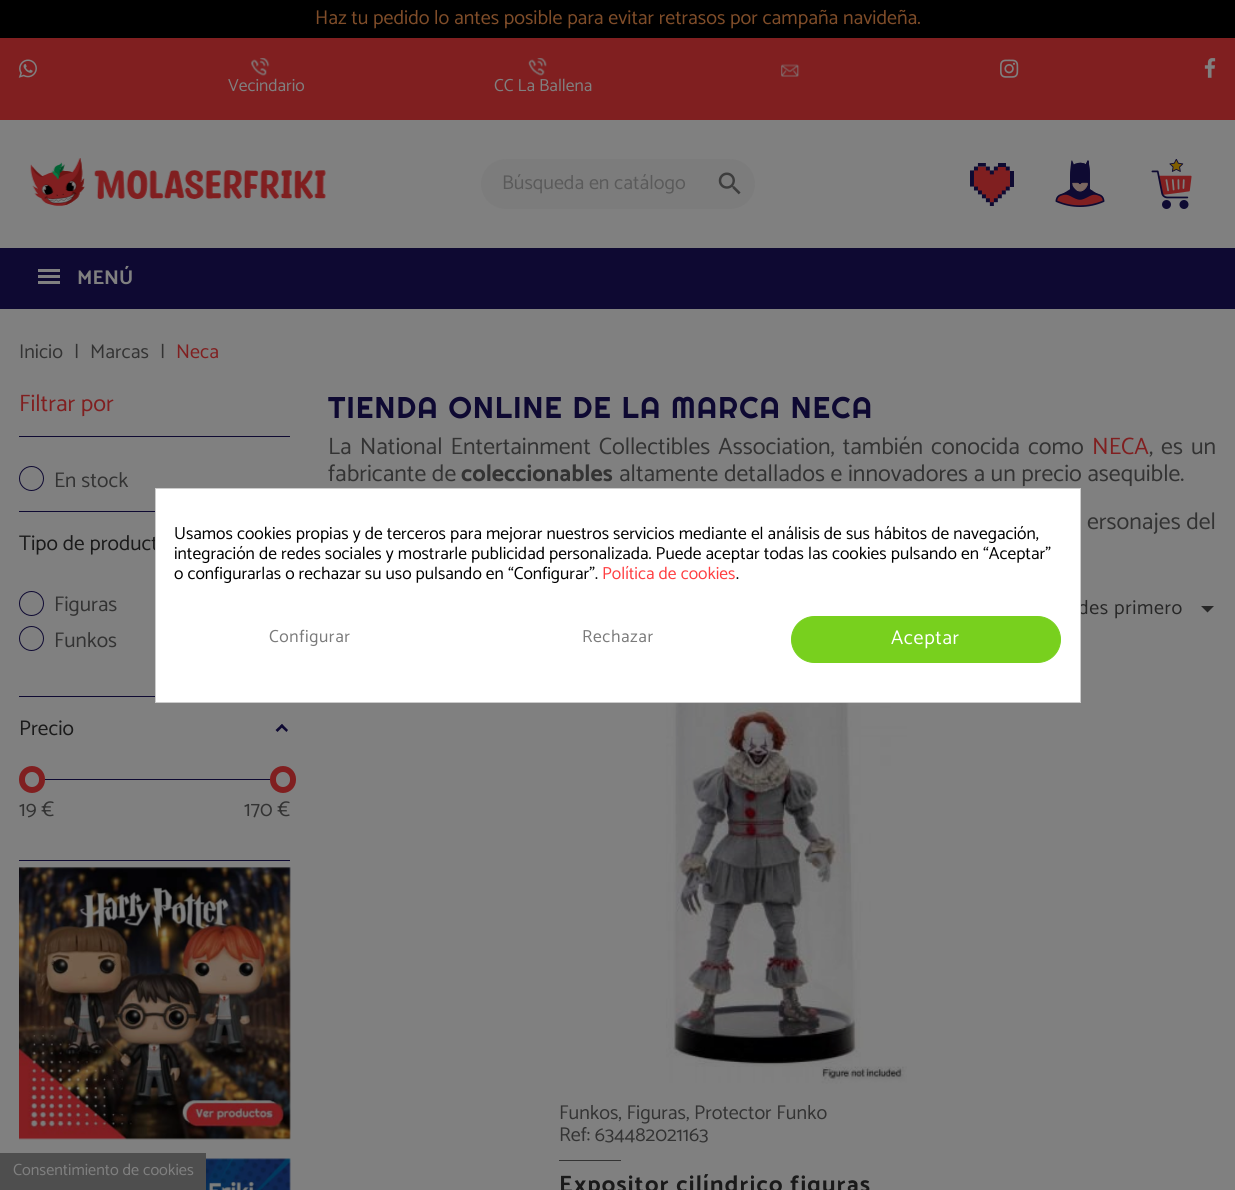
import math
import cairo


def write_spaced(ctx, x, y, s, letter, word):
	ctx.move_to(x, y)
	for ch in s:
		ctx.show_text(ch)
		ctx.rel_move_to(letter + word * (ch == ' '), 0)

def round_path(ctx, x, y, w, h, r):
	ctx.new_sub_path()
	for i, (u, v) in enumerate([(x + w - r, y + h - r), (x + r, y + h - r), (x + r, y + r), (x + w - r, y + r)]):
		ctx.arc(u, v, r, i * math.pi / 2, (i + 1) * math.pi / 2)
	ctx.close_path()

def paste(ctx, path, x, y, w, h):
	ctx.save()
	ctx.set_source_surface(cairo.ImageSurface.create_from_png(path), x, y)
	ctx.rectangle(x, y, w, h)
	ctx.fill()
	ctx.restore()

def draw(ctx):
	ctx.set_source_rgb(0.502, 0.502, 0.502)
	ctx.paint()
	ctx.set_source_rgb(0, 0, 0)
	ctx.rectangle(0, 0, 1235, 38)
	ctx.fill()
	ctx.select_font_face('Catamaran Thin')
	ctx.set_font_size(20)
	ctx.set_source_rgb(0.502, 0.302, 0.161)
	ctx.move_to(315, 24)
	ctx.show_text('Haz tu pedido lo antes posible para evitar retrasos por campaña navideña.')
	ctx.set_source_rgb(0.502, 0.122, 0.125)
	ctx.rectangle(0, 38, 1235, 82)
	ctx.fill()
	paste(ctx, 'media/1.png', 18, 59, 19, 19)
	paste(ctx, 'media/2.png', 781, 64, 19, 13)
	paste(ctx, 'media/3.png', 1000, 59, 19, 19)
	paste(ctx, 'media/4.png', 1204, 58, 12, 20)
	paste(ctx, 'media/5.png', 251, 58, 19, 18)
	ctx.set_font_size(17.5)
	ctx.set_source_rgb(0.502, 0.502, 0.502)
	ctx.move_to(228, 91)
	ctx.show_text('Vecindario')
	paste(ctx, 'media/6.png', 528, 58, 19, 18)
	ctx.move_to(494, 91)
	ctx.show_text('CC La Ballena')
	paste(ctx, 'media/7.png', 30, 158, 296, 48)
	ctx.set_source_rgb(0.486, 0.486, 0.486)
	round_path(ctx, 481, 159, 274, 50, 25)
	ctx.fill()
	ctx.set_font_size(20)
	ctx.set_source_rgb(0.353, 0.353, 0.353)
	ctx.move_to(502, 189)
	ctx.show_text('Búsqueda en catálogo')
	paste(ctx, 'media/8.png', 718, 172, 23, 23)
	paste(ctx, 'media/9.png', 970, 163, 44, 43)
	paste(ctx, 'media/10.png', 1055, 160, 50, 47)
	paste(ctx, 'media/11.png', 1151, 159, 41, 50)
	ctx.set_source_rgb(0.055, 0.039, 0.196)
	ctx.rectangle(0, 248, 1235, 61)
	ctx.fill()
	ctx.set_source_rgb(0.502, 0.502, 0.502)
	ctx.rectangle(38, 269, 22, 3)
	ctx.rectangle(38, 275, 22, 3)
	ctx.rectangle(38, 281, 22, 3)
	ctx.fill()
	ctx.select_font_face('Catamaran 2 Thin')
	ctx.move_to(77, 284)
	ctx.show_text('MENÚ')
	ctx.select_font_face('Catamaran Thin')
	ctx.set_source_rgb(0.2, 0.2, 0.2)
	for x, y, s in [
		(19, 358, 'Inicio'),
		(74, 358, '|'),
		(90, 358, 'Marcas'),
		(160, 358, '|'),
	]:
		ctx.move_to(x, y)
		ctx.show_text(s)
	ctx.set_source_rgb(0.502, 0.122, 0.125)
	ctx.move_to(176, 358)
	ctx.show_text('Neca')
	ctx.set_source_rgb(0.055, 0.039, 0.196)
	ctx.rectangle(19, 436, 271, 1)
	ctx.fill()
	ctx.set_font_size(23.75)
	ctx.set_source_rgb(0.502, 0.122, 0.125)
	ctx.move_to(19, 411)
	ctx.show_text('Filtrar por')
	ctx.set_source_rgb(0.055, 0.039, 0.196)
	ctx.rectangle(19, 511, 136, 1)
	ctx.fill()
	ctx.arc(31.5, 478.5, 12, 0, 2 * math.pi)
	ctx.set_line_width(1)
	ctx.stroke()
	ctx.set_font_size(21.25)
	ctx.set_source_rgb(0.2, 0.2, 0.2)
	ctx.move_to(54, 487)
	ctx.show_text('En stock')
	ctx.set_source_rgb(0.055, 0.039, 0.196)
	ctx.rectangle(19, 696, 136, 1)
	ctx.fill()
	ctx.set_source_rgb(0.102, 0.102, 0.102)
	ctx.move_to(19, 550)
	ctx.show_text('Tipo de product')
	ctx.new_path()
	ctx.arc(31.5, 603.5, 12, 0, 2 * math.pi)
	ctx.set_source_rgb(0.055, 0.039, 0.196)
	ctx.stroke()
	ctx.set_source_rgb(0.2, 0.2, 0.2)
	ctx.move_to(54, 611)
	ctx.show_text('Figuras')
	ctx.new_path()
	ctx.arc(31.5, 638.5, 12, 0, 2 * math.pi)
	ctx.set_source_rgb(0.055, 0.039, 0.196)
	ctx.stroke()
	ctx.set_source_rgb(0.2, 0.2, 0.2)
	ctx.move_to(54, 647)
	ctx.show_text('Funkos')
	ctx.set_source_rgb(0.055, 0.039, 0.196)
	ctx.rectangle(19, 860, 271, 1)
	ctx.fill()
	ctx.set_source_rgb(0.102, 0.102, 0.102)
	ctx.move_to(19, 735)
	ctx.show_text('Precio')
	ctx.set_source_rgb(0.055, 0.039, 0.196)
	ctx.new_path()
	ctx.move_to(282, 724)
	ctx.line_to(288, 730)
	ctx.line_to(286.5, 732)
	ctx.line_to(280, 726)
	ctx.close_path()
	ctx.fill()
	ctx.new_path()
	ctx.move_to(282, 724)
	ctx.line_to(283.5, 726)
	ctx.line_to(277.5, 732)
	ctx.line_to(275.5, 730)
	ctx.close_path()
	ctx.fill()
	round_path(ctx, 22, 769, 20, 21, 10)
	ctx.set_source_rgb(0.502, 0.122, 0.125)
	ctx.set_line_width(6)
	ctx.stroke()
	ctx.set_source_rgb(0.055, 0.039, 0.196)
	ctx.rectangle(45, 779, 225, 1)
	ctx.fill()
	round_path(ctx, 273, 769, 20, 21, 10)
	ctx.set_source_rgb(0.502, 0.122, 0.125)
	ctx.stroke()
	ctx.set_source_rgb(0.2, 0.2, 0.2)
	ctx.move_to(19, 816)
	ctx.show_text('19 €')
	ctx.move_to(244, 816)
	ctx.show_text('170 €')
	paste(ctx, 'media/12.png', 19, 867, 272, 273)
	paste(ctx, 'media/13.png', 206, 1158, 85, 32)
	ctx.select_font_face('Righteous')
	ctx.set_font_size(30)
	ctx.set_source_rgb(0.055, 0.039, 0.196)
	write_spaced(ctx, 328, 418, 'TIENDA ONLINE DE LA MARCA NECA', 1.25, 0)
	ctx.select_font_face('Catamaran Thin')
	ctx.set_font_size(23.75)
	ctx.set_source_rgb(0.2, 0.2, 0.2)
	write_spaced(ctx, 328, 454, 'La National Entertainment Collectibles Association, también conocida como', 0, 2.5)
	ctx.set_source_rgb(0.502, 0.122, 0.125)
	ctx.move_to(1092, 454)
	ctx.show_text('NECA')
	ctx.set_source_rgb(0.2, 0.2, 0.2)
	write_spaced(ctx, 1149, 454, ', es un', 0, 2.5)
	ctx.move_to(328, 481)
	ctx.show_text('fabricante de')
	ctx.select_font_face('Catamaran 2 Thin')
	ctx.move_to(461, 481)
	ctx.show_text('coleccionables')
	ctx.select_font_face('Catamaran Thin')
	ctx.move_to(619, 481)
	ctx.show_text('altamente detallados e innovadores a un precio asequible.')
	ctx.move_to(1087, 529)
	ctx.show_text('ersonajes del')
	ctx.set_font_size(20)
	ctx.set_source_rgb(0.153, 0.153, 0.153)
	write_spaced(ctx, 1078, 614, 'des primero', 0.6, 0)
	ctx.new_path()
	ctx.move_to(1201, 606)
	ctx.line_to(1214, 606)
	ctx.line_to(1207.5, 612.5)
	ctx.close_path()
	ctx.fill()
	paste(ctx, 'media/14.png', 666, 703, 241, 381)
	ctx.set_source_rgb(0.2, 0.2, 0.2)
	ctx.move_to(559, 1119)
	ctx.show_text('Funkos, Figuras, Protector Funko')
	ctx.move_to(559, 1141)
	ctx.show_text('Ref: 634482021163')
	ctx.rectangle(559, 1160, 62, 1)
	ctx.fill()
	ctx.select_font_face('Catamaran 2 Thin')
	ctx.set_font_size(23.75)
	ctx.set_source_rgb(0.102, 0.102, 0.102)
	write_spaced(ctx, 559, 1192, 'Expositor cilíndrico figuras', 1.25, 0)
	ctx.set_source_rgb(1, 1, 1)
	ctx.rectangle(155.5, 488.5, 925, 214)
	ctx.fill_preserve()
	ctx.set_source_rgb(0.8, 0.8, 0.8)
	ctx.set_line_width(1)
	ctx.stroke()
	ctx.select_font_face('Catamaran Thin')
	ctx.set_font_size(17.5)
	ctx.set_source_rgb(0, 0, 0)
	for x, y, s in [
		(174, 539, 'Usamos cookies propias y de terceros para mejorar nuestros servicios mediante el análisis de sus hábitos de navegación,'),
		(174, 559, 'integración de redes sociales y mostrarle publicidad personalizada. Puede aceptar todas las cookies pulsando en “Aceptar”'),
		(174, 579, 'o configurarlas o rechazar su uso pulsando en “Configurar”.'),
	]:
		ctx.move_to(x, y)
		ctx.show_text(s)
	ctx.set_source_rgb(1, 0.243, 0.255)
	ctx.move_to(602, 579)
	ctx.show_text('Política de cookies')
	ctx.set_source_rgb(0, 0, 0)
	ctx.move_to(736, 579)
	ctx.show_text('.')
	ctx.set_source_rgb(0.478, 0.478, 0.478)
	write_spaced(ctx, 269, 642, 'Configurar', 0.6, 0)
	write_spaced(ctx, 582, 642, 'Rechazar', 0.6, 0)
	ctx.set_source_rgb(0.471, 0.816, 0.118)
	round_path(ctx, 791.5, 616.5, 269, 46, 23)
	ctx.fill_preserve()
	ctx.stroke()
	ctx.set_font_size(20)
	ctx.set_source_rgb(1, 1, 1)
	write_spaced(ctx, 891, 644, 'Aceptar', 0.6, 0)
	ctx.set_source_rgb(0.306, 0.306, 0.306)
	ctx.rectangle(0, 1153, 206, 37)
	ctx.fill()
	ctx.set_font_size(16.25)
	ctx.set_source_rgb(0.502, 0.502, 0.502)
	ctx.move_to(13, 1175)
	ctx.show_text('Consentimiento de cookies')


surface = cairo.ImageSurface(cairo.FORMAT_RGB24, 1235, 1190)
ctx = cairo.Context(surface)
options = cairo.FontOptions()
options.set_hint_metrics(cairo.HINT_METRICS_OFF)
options.set_hint_style(cairo.HINT_STYLE_NONE)
ctx.set_font_options(options)
ctx.set_miter_limit(4)
draw(ctx)
surface.write_to_png('image.png')
